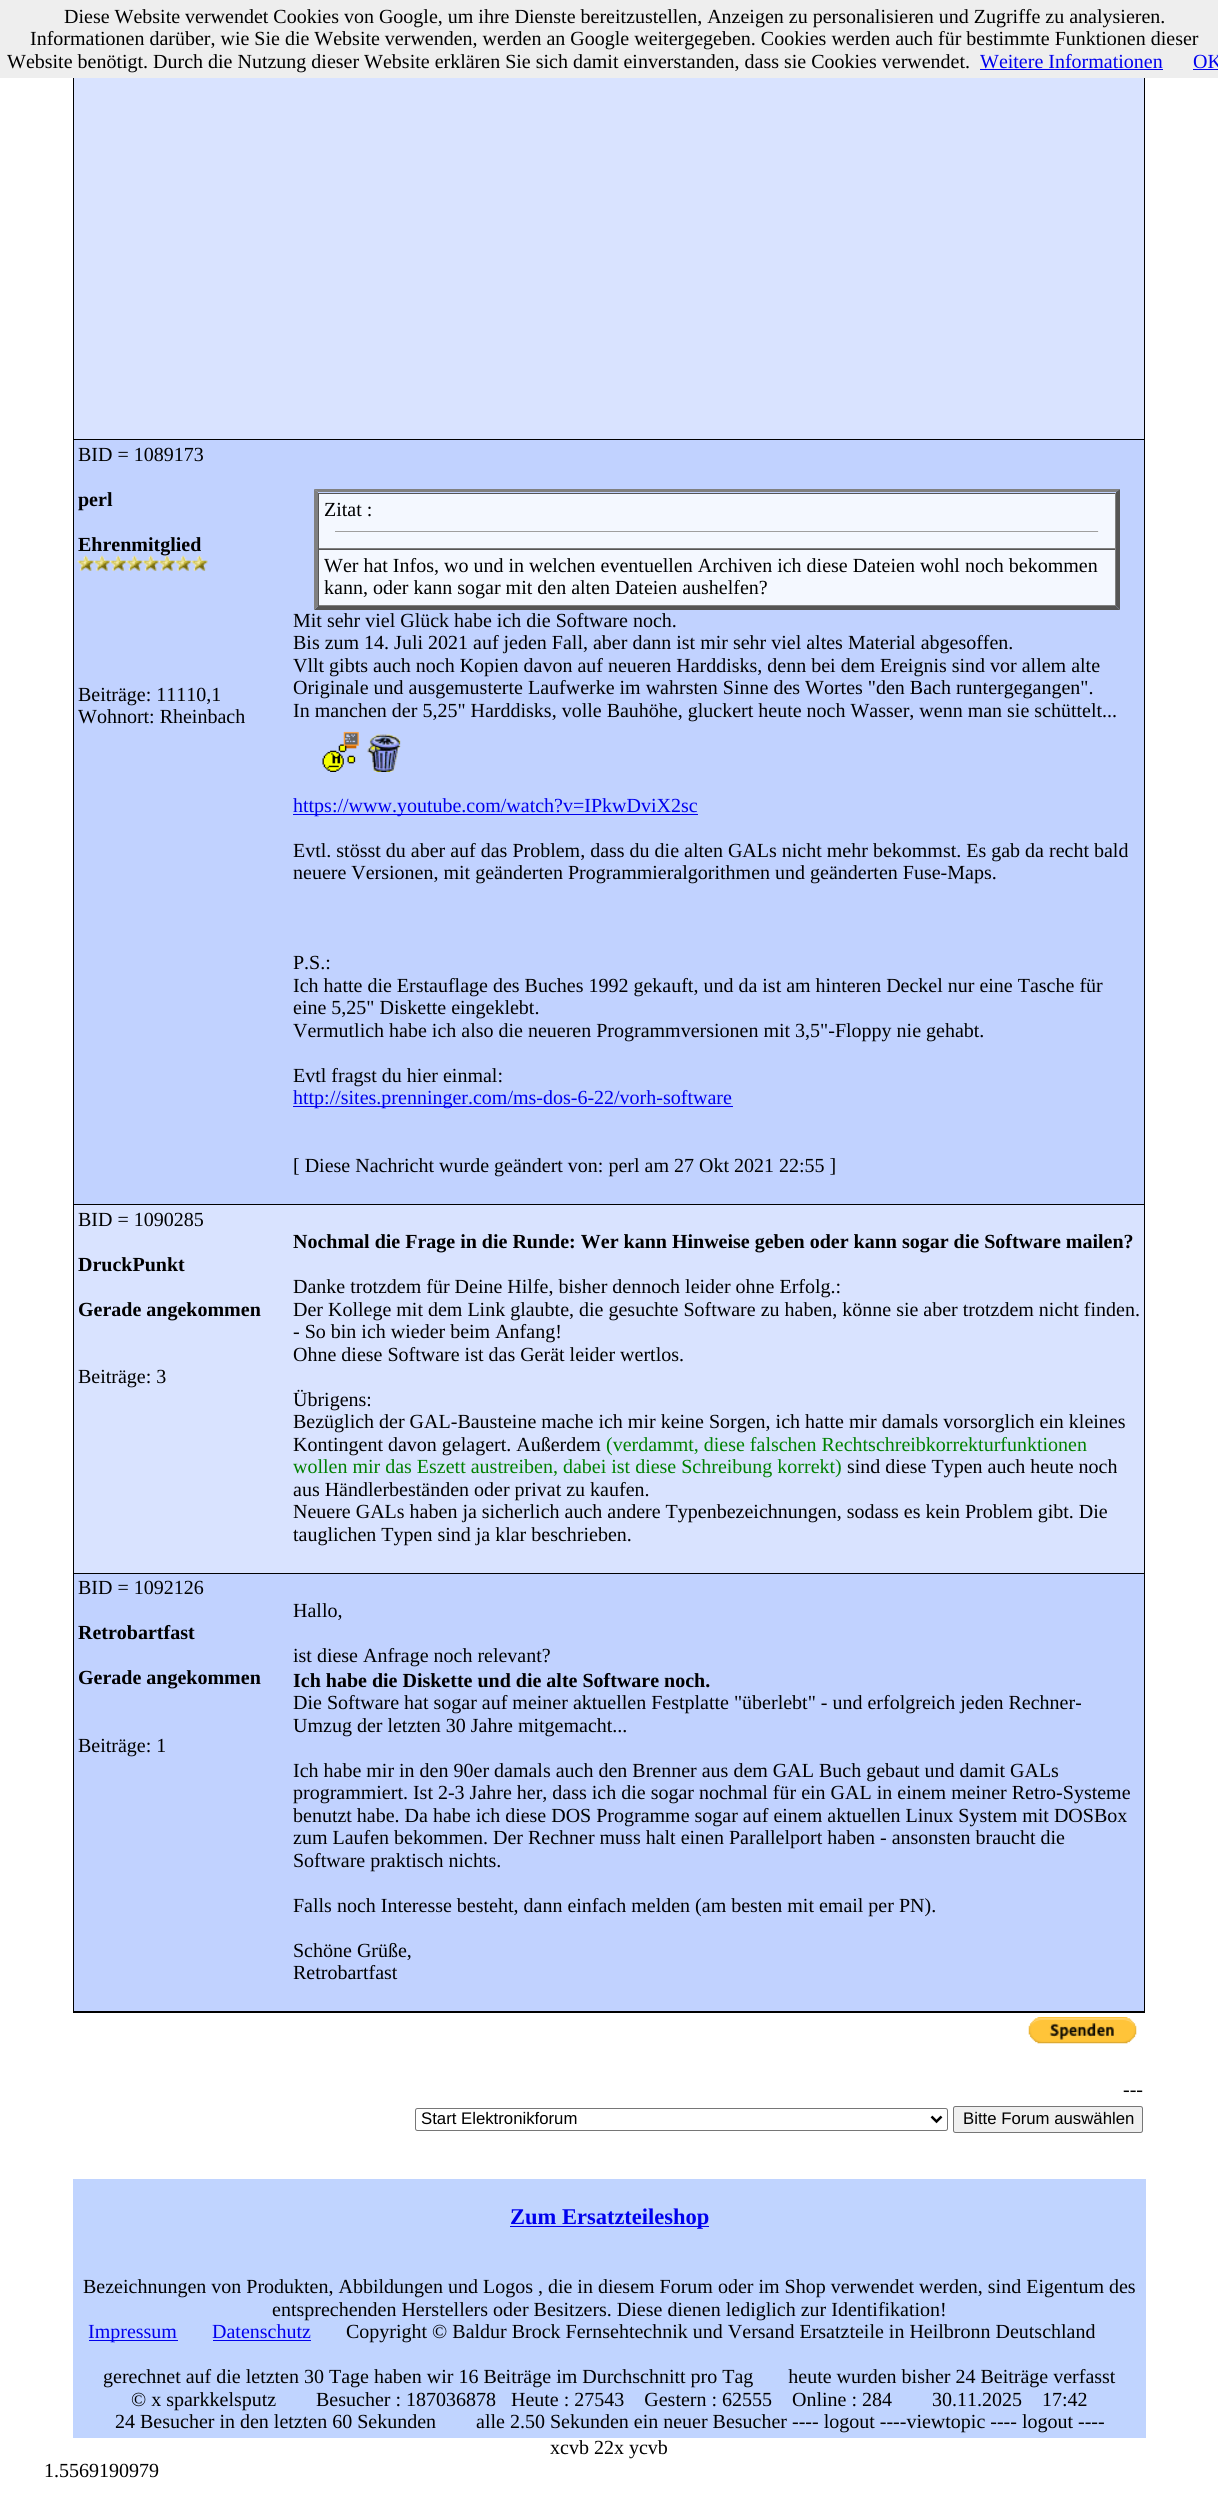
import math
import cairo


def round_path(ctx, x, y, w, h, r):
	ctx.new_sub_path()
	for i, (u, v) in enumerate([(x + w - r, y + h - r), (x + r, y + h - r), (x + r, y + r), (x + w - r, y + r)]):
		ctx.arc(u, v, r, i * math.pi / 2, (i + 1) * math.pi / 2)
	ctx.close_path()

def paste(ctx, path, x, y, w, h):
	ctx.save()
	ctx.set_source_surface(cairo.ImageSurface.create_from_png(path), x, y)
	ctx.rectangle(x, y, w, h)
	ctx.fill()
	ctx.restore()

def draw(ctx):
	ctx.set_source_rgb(1, 1, 1)
	ctx.paint()
	ctx.set_source_rgb(0.933, 0.933, 0.933)
	ctx.rectangle(0, 0, 1218, 78)
	ctx.fill()
	ctx.select_font_face('Liberation Serif')
	ctx.set_font_size(20)
	ctx.set_source_rgb(0, 0, 0)
	for x, y, s in [
		(64, 23, 'Diese Website verwendet Cookies von Google, um ihre Dienste bereitzustellen, Anzeigen zu personalisieren und Zugriffe zu analysieren.'),
		(30, 45, 'Informationen darüber, wie Sie die Website verwenden, werden an Google weitergegeben. Cookies werden auch für bestimmte Funktionen dieser'),
		(7, 68, 'Website benötigt. Durch die Nutzung dieser Website erklären Sie sich damit einverstanden, dass sie Cookies verwendet.'),
	]:
		ctx.move_to(x, y)
		ctx.show_text(s)
	ctx.set_source_rgb(0, 0, 0.933)
	ctx.move_to(980, 68)
	ctx.show_text('Weitere Informationen')
	ctx.rectangle(980, 69, 183, 1)
	ctx.fill()
	ctx.move_to(1193, 68)
	ctx.show_text('OK')
	ctx.rectangle(1193, 69, 25, 1)
	ctx.fill()
	ctx.set_source_rgb(0, 0, 0)
	ctx.rectangle(73, 78, 1072, 1935)
	ctx.fill()
	ctx.set_source_rgb(0.851, 0.89, 1)
	ctx.rectangle(74, 78, 1070, 361)
	ctx.fill()
	ctx.set_source_rgb(0.757, 0.824, 1)
	ctx.rectangle(74, 440, 1070, 764)
	ctx.fill()
	ctx.set_source_rgb(0, 0, 0)
	ctx.move_to(78, 461)
	ctx.show_text('BID = 1089173')
	ctx.select_font_face('Liberation Serif', cairo.FONT_SLANT_NORMAL, cairo.FONT_WEIGHT_BOLD)
	ctx.move_to(78, 506)
	ctx.show_text('perl')
	ctx.move_to(78, 551)
	ctx.show_text('Ehrenmitglied')
	paste(ctx, 'media/1.png', 77, 555, 17, 16)
	paste(ctx, 'media/2.png', 93, 555, 17, 16)
	paste(ctx, 'media/3.png', 110, 555, 17, 16)
	paste(ctx, 'media/4.png', 126, 555, 17, 16)
	paste(ctx, 'media/5.png', 142, 555, 17, 16)
	paste(ctx, 'media/6.png', 158, 555, 17, 16)
	paste(ctx, 'media/3.png', 175, 555, 17, 16)
	paste(ctx, 'media/4.png', 191, 555, 17, 16)
	ctx.select_font_face('Liberation Serif')
	ctx.move_to(78, 701)
	ctx.show_text('Beiträge: 11110,1')
	ctx.move_to(78, 723)
	ctx.show_text('Wohnort: Rheinbach')
	ctx.set_source_rgb(0.502, 0.502, 0.502)
	ctx.new_path()
	ctx.move_to(314, 489)
	ctx.line_to(1120, 489)
	ctx.line_to(1116, 492)
	ctx.line_to(318, 492)
	ctx.close_path()
	ctx.fill()
	ctx.set_source_rgb(0.333, 0.333, 0.333)
	ctx.new_path()
	ctx.move_to(1120, 489)
	ctx.line_to(1120, 610)
	ctx.line_to(1116, 606)
	ctx.line_to(1116, 492)
	ctx.close_path()
	ctx.fill()
	ctx.new_path()
	ctx.move_to(1120, 610)
	ctx.line_to(314, 610)
	ctx.line_to(318, 606)
	ctx.line_to(1116, 606)
	ctx.close_path()
	ctx.fill()
	ctx.set_source_rgb(0.502, 0.502, 0.502)
	ctx.new_path()
	ctx.move_to(314, 610)
	ctx.line_to(314, 489)
	ctx.line_to(318, 492)
	ctx.line_to(318, 606)
	ctx.close_path()
	ctx.fill()
	ctx.set_source_rgb(0.957, 0.969, 1)
	ctx.rectangle(319, 494, 796, 54)
	ctx.fill()
	ctx.set_source_rgb(0.333, 0.333, 0.333)
	ctx.rectangle(318, 493, 798, 1)
	ctx.fill()
	ctx.set_source_rgb(0.502, 0.502, 0.502)
	ctx.rectangle(1115, 493, 1, 56)
	ctx.rectangle(318, 548, 798, 1)
	ctx.fill()
	ctx.set_source_rgb(0.333, 0.333, 0.333)
	ctx.rectangle(318, 493, 1, 56)
	ctx.fill()
	ctx.set_source_rgb(0, 0, 0)
	ctx.move_to(324, 516)
	ctx.show_text('Zitat :')
	ctx.set_source_rgb(0.624, 0.624, 0.624)
	ctx.rectangle(335, 531, 764, 1)
	ctx.fill()
	ctx.set_source_rgb(0.933, 0.933, 0.933)
	ctx.rectangle(1098, 531, 1, 1)
	ctx.fill()
	ctx.set_source_rgb(0.957, 0.969, 1)
	ctx.rectangle(319, 550, 796, 55)
	ctx.fill()
	ctx.set_source_rgb(0.333, 0.333, 0.333)
	ctx.rectangle(318, 549, 798, 1)
	ctx.fill()
	ctx.set_source_rgb(0.502, 0.502, 0.502)
	ctx.rectangle(1115, 549, 1, 57)
	ctx.rectangle(318, 605, 798, 1)
	ctx.fill()
	ctx.set_source_rgb(0.333, 0.333, 0.333)
	ctx.rectangle(318, 549, 1, 57)
	ctx.fill()
	ctx.set_source_rgb(0, 0, 0)
	for x, y, s in [
		(324, 572, 'Wer hat Infos, wo und in welchen eventuellen Archiven ich diese Dateien wohl noch bekommen'),
		(324, 594, 'kann, oder kann sogar mit den alten Dateien aushelfen?'),
		(293, 627, 'Mit sehr viel Glück habe ich die Software noch.'),
		(293, 649, 'Bis zum 14. Juli 2021 auf jeden Fall, aber dann ist mir sehr viel altes Material abgesoffen.'),
		(293, 672, 'Vllt gibts auch noch Kopien davon auf neueren Harddisks, denn bei dem Ereignis sind vor allem alte'),
		(293, 694, 'Originale und ausgemusterte Laufwerke im wahrsten Sinne des Wortes "den Bach runtergegangen".'),
		(293, 717, 'In manchen der 5,25" Harddisks, volle Bauhöhe, gluckert heute noch Wasser, wenn man sie schüttelt...'),
	]:
		ctx.move_to(x, y)
		ctx.show_text(s)
	paste(ctx, 'media/7.png', 322, 731, 79, 41)
	ctx.set_source_rgb(0, 0, 0.933)
	ctx.rectangle(293, 814, 405, 1)
	ctx.fill()
	ctx.move_to(293, 812)
	ctx.show_text('https://www.youtube.com/watch?v=IPkwDviX2sc')
	ctx.set_source_rgb(0, 0, 0)
	for x, y, s in [
		(293, 857, 'Evtl. stösst du aber auf das Problem, dass du die alten GALs nicht mehr bekommst. Es gab da recht bald'),
		(293, 879, 'neuere Versionen, mit geänderten Programmieralgorithmen und geänderten Fuse-Maps.'),
		(293, 969, 'P.S.:'),
		(293, 992, 'Ich hatte die Erstauflage des Buches 1992 gekauft, und da ist am hinteren Deckel nur eine Tasche für'),
		(293, 1014, 'eine 5,25" Diskette eingeklebt.'),
		(293, 1037, 'Vermutlich habe ich also die neueren Programmversionen mit 3,5"-Floppy nie gehabt.'),
		(293, 1082, 'Evtl fragst du hier einmal:'),
	]:
		ctx.move_to(x, y)
		ctx.show_text(s)
	ctx.set_source_rgb(0, 0, 0.933)
	ctx.rectangle(293, 1106, 440, 1)
	ctx.fill()
	ctx.move_to(293, 1104)
	ctx.show_text('http://sites.prenninger.com/ms-dos-6-22/vorh-software')
	ctx.set_source_rgb(0, 0, 0)
	ctx.move_to(293, 1172)
	ctx.show_text('[ Diese Nachricht wurde geändert von: perl am 27 Okt 2021 22:55 ]')
	ctx.set_source_rgb(0.851, 0.89, 1)
	ctx.rectangle(74, 1205, 1070, 368)
	ctx.fill()
	ctx.set_source_rgb(0, 0, 0)
	ctx.move_to(78, 1226)
	ctx.show_text('BID = 1090285')
	ctx.select_font_face('Liberation Serif', cairo.FONT_SLANT_NORMAL, cairo.FONT_WEIGHT_BOLD)
	ctx.move_to(78, 1271)
	ctx.show_text('DruckPunkt')
	ctx.move_to(78, 1316)
	ctx.show_text('Gerade angekommen')
	ctx.select_font_face('Liberation Serif')
	ctx.move_to(78, 1383)
	ctx.show_text('Beiträge: 3')
	ctx.select_font_face('Liberation Serif', cairo.FONT_SLANT_NORMAL, cairo.FONT_WEIGHT_BOLD)
	ctx.move_to(293, 1248)
	ctx.show_text('Nochmal die Frage in die Runde: Wer kann Hinweise geben oder kann sogar die Software mailen?')
	ctx.select_font_face('Liberation Serif')
	for x, y, s in [
		(293, 1293, 'Danke trotzdem für Deine Hilfe, bisher dennoch leider ohne Erfolg.:'),
		(293, 1316, 'Der Kollege mit dem Link glaubte, die gesuchte Software zu haben, könne sie aber trotzdem nicht finden.'),
		(293, 1338, '- So bin ich wieder beim Anfang!'),
		(293, 1361, 'Ohne diese Software ist das Gerät leider wertlos.'),
		(293, 1406, 'Übrigens:'),
		(293, 1428, 'Bezüglich der GAL-Bausteine mache ich mir keine Sorgen, ich hatte mir damals vorsorglich ein kleines'),
		(293, 1451, 'Kontingent davon gelagert. Außerdem'),
	]:
		ctx.move_to(x, y)
		ctx.show_text(s)
	ctx.set_source_rgb(0, 0.502, 0)
	ctx.move_to(606, 1451)
	ctx.show_text('(verdammt, diese falschen Rechtschreibkorrekturfunktionen')
	ctx.move_to(293, 1473)
	ctx.show_text('wollen mir das Eszett austreiben, dabei ist diese Schreibung korrekt)')
	ctx.set_source_rgb(0, 0, 0)
	for x, y, s in [
		(847, 1473, 'sind diese Typen auch heute noch'),
		(293, 1496, 'aus Händlerbeständen oder privat zu kaufen.'),
		(293, 1518, 'Neuere GALs haben ja sicherlich auch andere Typenbezeichnungen, sodass es kein Problem gibt. Die'),
		(293, 1541, 'tauglichen Typen sind ja klar beschrieben.'),
	]:
		ctx.move_to(x, y)
		ctx.show_text(s)
	ctx.set_source_rgb(0.757, 0.824, 1)
	ctx.rectangle(74, 1574, 1070, 437)
	ctx.fill()
	ctx.set_source_rgb(0, 0, 0)
	ctx.move_to(78, 1594)
	ctx.show_text('BID = 1092126')
	ctx.select_font_face('Liberation Serif', cairo.FONT_SLANT_NORMAL, cairo.FONT_WEIGHT_BOLD)
	ctx.move_to(78, 1639)
	ctx.show_text('Retrobartfast')
	ctx.move_to(78, 1684)
	ctx.show_text('Gerade angekommen')
	ctx.select_font_face('Liberation Serif')
	for x, y, s in [
		(78, 1752, 'Beiträge: 1'),
		(293, 1617, 'Hallo,'),
		(293, 1662, 'ist diese Anfrage noch relevant?'),
	]:
		ctx.move_to(x, y)
		ctx.show_text(s)
	ctx.select_font_face('Liberation Serif', cairo.FONT_SLANT_NORMAL, cairo.FONT_WEIGHT_BOLD)
	ctx.move_to(293, 1687)
	ctx.show_text('Ich habe die Diskette und die alte Software noch.')
	ctx.select_font_face('Liberation Serif')
	for x, y, s in [
		(293, 1709, 'Die Software hat sogar auf meiner aktuellen Festplatte "überlebt" - und erfolgreich jeden Rechner-'),
		(293, 1732, 'Umzug der letzten 30 Jahre mitgemacht...'),
		(293, 1777, 'Ich habe mir in den 90er damals auch den Brenner aus dem GAL Buch gebaut und damit GALs'),
		(293, 1799, 'programmiert. Ist 2-3 Jahre her, dass ich die sogar nochmal für ein GAL in einem meiner Retro-Systeme'),
		(293, 1822, 'benutzt habe. Da habe ich diese DOS Programme sogar auf einem aktuellen Linux System mit DOSBox'),
		(293, 1844, 'zum Laufen bekommen. Der Rechner muss halt einen Parallelport haben - ansonsten braucht die'),
		(293, 1867, 'Software praktisch nichts.'),
		(293, 1912, 'Falls noch Interesse besteht, dann einfach melden (am besten mit email per PN).'),
		(293, 1957, 'Schöne Grüße,'),
		(293, 1979, 'Retrobartfast'),
	]:
		ctx.move_to(x, y)
		ctx.show_text(s)
	paste(ctx, 'media/8.png', 1028, 2017, 109, 27)
	ctx.move_to(1123, 2096)
	ctx.show_text('---')
	round_path(ctx, 415.5, 2108.5, 532, 22, 2)
	ctx.set_source_rgb(0.463, 0.463, 0.463)
	ctx.set_line_width(1)
	ctx.stroke()
	ctx.new_path()
	ctx.move_to(931.5, 2116.5)
	ctx.line_to(936.5, 2121.5)
	ctx.line_to(941.5, 2116.5)
	ctx.set_source_rgb(0, 0, 0)
	ctx.set_line_width(2.5)
	ctx.stroke()
	ctx.select_font_face('Liberation Sans')
	ctx.set_font_size(16.75)
	ctx.move_to(421, 2124)
	ctx.show_text('Start Elektronikforum')
	ctx.set_source_rgb(0.937, 0.937, 0.937)
	round_path(ctx, 953.5, 2106.5, 189, 26, 2)
	ctx.fill_preserve()
	ctx.set_source_rgb(0.463, 0.463, 0.463)
	ctx.set_line_width(1)
	ctx.stroke()
	ctx.set_source_rgb(0, 0, 0)
	ctx.move_to(963, 2124)
	ctx.show_text('Bitte Forum auswählen')
	ctx.set_source_rgb(0.753, 0.831, 1)
	ctx.rectangle(73, 2179, 1073, 259)
	ctx.fill()
	ctx.set_source_rgb(0, 0, 0.933)
	ctx.rectangle(510, 2226, 199, 1)
	ctx.fill()
	ctx.select_font_face('Liberation Serif', cairo.FONT_SLANT_NORMAL, cairo.FONT_WEIGHT_BOLD)
	ctx.set_font_size(22.5)
	ctx.move_to(510, 2224)
	ctx.show_text('Zum Ersatzteileshop')
	ctx.select_font_face('Liberation Serif')
	ctx.set_font_size(20)
	ctx.set_source_rgb(0, 0, 0)
	ctx.move_to(83, 2293)
	ctx.show_text('Bezeichnungen von Produkten, Abbildungen und Logos , die in diesem Forum oder im Shop verwendet werden, sind Eigentum des')
	ctx.move_to(272, 2316)
	ctx.show_text('entsprechenden Herstellers oder Besitzers. Diese dienen lediglich zur Identifikation!')
	ctx.set_source_rgb(0, 0, 0.933)
	ctx.rectangle(89, 2340, 89, 1)
	ctx.fill()
	ctx.move_to(88, 2338)
	ctx.show_text('Impressum')
	ctx.move_to(212, 2338)
	ctx.show_text('Datenschutz')
	ctx.rectangle(213, 2340, 98, 1)
	ctx.fill()
	ctx.set_source_rgb(0, 0, 0)
	for x, y, s in [
		(346, 2338, 'Copyright © Baldur Brock Fernsehtechnik und Versand Ersatzteile in Heilbronn Deutschland'),
		(103, 2383, 'gerechnet auf die letzten 30 Tage haben wir 16 Beiträge im Durchschnitt pro Tag       heute wurden bisher 24 Beiträge verfasst'),
		(131, 2406, '© x sparkkelsputz'),
		(316, 2406, 'Besucher : 187036878   Heute : 27543    Gestern : 62555    Online : 284        30.11.2025    17:42'),
		(115, 2428, '24 Besucher in den letzten 60 Sekunden        alle 2.50 Sekunden ein neuer Besucher ---- logout ----viewtopic ---- logout ----'),
		(550, 2454, 'xcvb 22x ycvb'),
		(44, 2477, '1.5569190979'),
	]:
		ctx.move_to(x, y)
		ctx.show_text(s)


surface = cairo.ImageSurface(cairo.FORMAT_RGB24, 1218, 2518)
ctx = cairo.Context(surface)
options = cairo.FontOptions()
options.set_hint_metrics(cairo.HINT_METRICS_OFF)
options.set_hint_style(cairo.HINT_STYLE_NONE)
ctx.set_font_options(options)
ctx.set_miter_limit(4)
draw(ctx)
surface.write_to_png('image.png')
